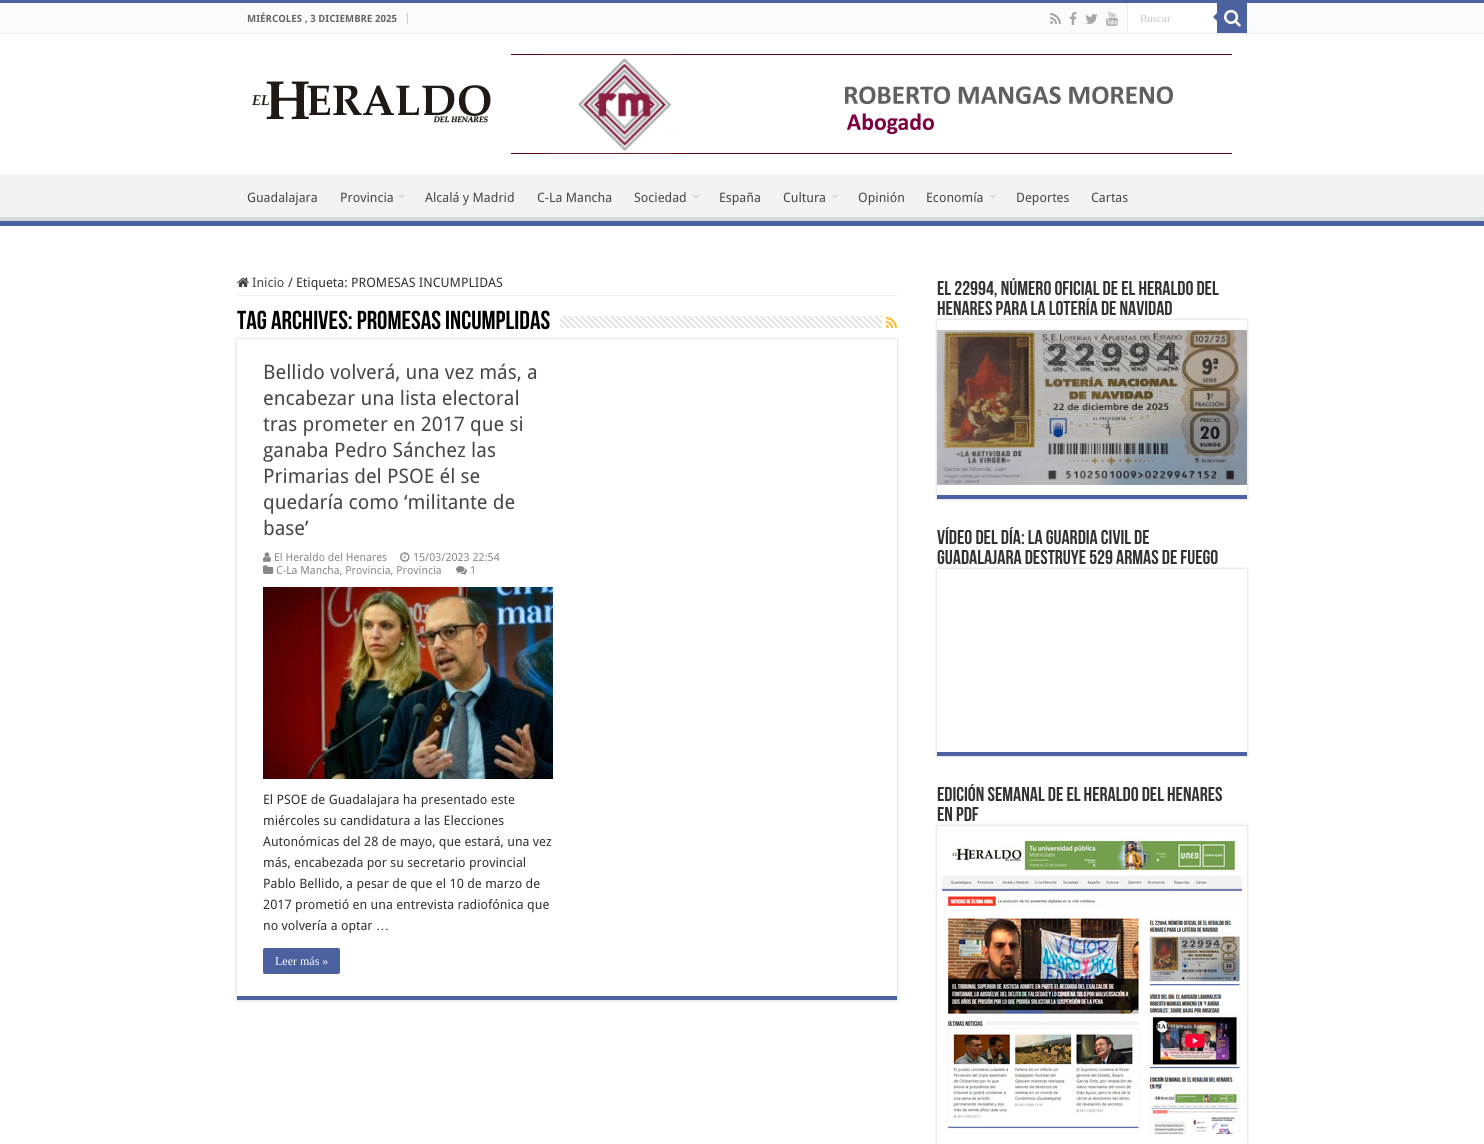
import math
import cairo


def round_path(ctx, x, y, w, h, r):
	ctx.new_sub_path()
	for i, (u, v) in enumerate([(x + w - r, y + h - r), (x + r, y + h - r), (x + r, y + r), (x + w - r, y + r)]):
		ctx.arc(u, v, r, i * math.pi / 2, (i + 1) * math.pi / 2)
	ctx.close_path()

def blur_box(ctx, x, y, w, h, r, blur, alpha):
	ctx.push_group_with_content(cairo.CONTENT_ALPHA)
	ctx.set_operator(cairo.OPERATOR_SOURCE)
	for i in range(15, -16, -2):
		e = blur * i / 6
		if min(w, h) + 2 * e > 0:
			ctx.set_source_rgba(0, 0, 0, alpha * math.erfc((i - 1) / 8.5) / 2)
			round_path(ctx, x - e, y - e, w + 2 * e, h + 2 * e, max(0, min(r + e + blur * .6, min(w, h) / 2 + e)))
			ctx.fill()
	ctx.mask(ctx.pop_group())

def paste(ctx, path, x, y, w, h):
	ctx.save()
	ctx.set_source_surface(cairo.ImageSurface.create_from_png(path), x, y)
	ctx.rectangle(x, y, w, h)
	ctx.fill()
	ctx.restore()

def draw(ctx):
	ctx.set_source_rgb(1, 1, 1)
	ctx.paint()
	ctx.set_source_rgb(0.298, 0.38, 0.627)
	ctx.rectangle(0, 0, 1484, 3)
	ctx.fill()
	ctx.set_source_rgb(0.984, 0.984, 0.984)
	ctx.rectangle(0, 3, 1484, 30)
	ctx.fill()
	ctx.set_source_rgb(0.925, 0.925, 0.925)
	ctx.rectangle(0, 33, 1484, 1)
	ctx.fill()
	ctx.set_source_rgb(0.8, 0.8, 0.8)
	ctx.rectangle(407, 13, 1, 11)
	ctx.fill()
	ctx.select_font_face('Droid Sans', cairo.FONT_SLANT_NORMAL, cairo.FONT_WEIGHT_BOLD)
	ctx.set_font_size(10)
	ctx.set_source_rgb(0.4, 0.4, 0.4)
	ctx.move_to(247, 22)
	ctx.show_text('MIÉRCOLES , 3 DICIEMBRE 2025')
	paste(ctx, 'media/1.png', 1050, 13, 11, 11)
	paste(ctx, 'media/2.png', 1069, 12, 8, 13)
	paste(ctx, 'media/3.png', 1085, 14, 13, 10)
	paste(ctx, 'media/4.png', 1106, 12, 12, 14)
	ctx.set_source_rgb(1, 1, 1)
	ctx.rectangle(1128, 3, 89, 29)
	ctx.fill()
	ctx.set_source_rgb(0.925, 0.925, 0.925)
	ctx.rectangle(1127, 3, 1, 29)
	ctx.fill()
	ctx.select_font_face('Liberation Serif')
	ctx.set_font_size(11)
	ctx.set_source_rgb(0.773, 0.773, 0.773)
	ctx.move_to(1140, 22)
	ctx.show_text('Buscar')
	ctx.set_source_rgb(0.298, 0.38, 0.627)
	ctx.rectangle(1217, 3, 30, 30)
	ctx.fill()
	paste(ctx, 'media/5.png', 1224, 9, 17, 18)
	ctx.new_path()
	ctx.move_to(1217, 13)
	ctx.line_to(1217, 21)
	ctx.line_to(1213, 17)
	ctx.close_path()
	ctx.fill()
	paste(ctx, 'media/6.png', 252, 81, 239, 42)
	paste(ctx, 'media/7.png', 511, 54, 721, 100)
	ctx.set_source_rgb(0.953, 0.953, 0.953)
	ctx.rectangle(0, 174, 1484, 43)
	ctx.fill()
	ctx.save()
	ctx.rectangle(0, 174, 1484, 47)
	ctx.clip()
	ctx.set_source_rgb(0.831, 0.847, 0.859)
	ctx.set_fill_rule(cairo.FILL_RULE_EVEN_ODD)
	ctx.new_path()
	ctx.move_to(-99, 75)
	ctx.line_to(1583, 75)
	ctx.line_to(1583, 320)
	ctx.line_to(-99, 320)
	ctx.close_path()
	ctx.move_to(-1, 168)
	ctx.line_to(1483, 168)
	ctx.line_to(1484, 169)
	ctx.line_to(1484, 192)
	ctx.curve_to(1484, 196, 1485, 216, 1483, 217)
	ctx.line_to(-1, 217)
	ctx.line_to(-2, 216)
	ctx.line_to(-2, 168)
	ctx.close_path()
	ctx.fill()
	ctx.restore()
	ctx.set_source_rgb(0.298, 0.38, 0.627)
	ctx.rectangle(0, 221, 1484, 5)
	ctx.fill()
	ctx.select_font_face('Droid Sans')
	ctx.set_font_size(13)
	ctx.set_source_rgb(0.282, 0.282, 0.282)
	ctx.move_to(247, 202)
	ctx.show_text('Guadalajara')
	ctx.move_to(340, 202)
	ctx.show_text('Provincia')
	ctx.set_source_rgb(0.867, 0.867, 0.867)
	ctx.new_path()
	ctx.move_to(398, 195)
	ctx.line_to(406, 195)
	ctx.line_to(402, 199)
	ctx.close_path()
	ctx.fill()
	ctx.set_source_rgb(0.282, 0.282, 0.282)
	for x, y, s in [
		(425, 202, 'Alcalá y Madrid'),
		(537, 202, 'C-La Mancha'),
		(634, 202, 'Sociedad'),
	]:
		ctx.move_to(x, y)
		ctx.show_text(s)
	ctx.set_source_rgb(0.867, 0.867, 0.867)
	ctx.new_path()
	ctx.move_to(692, 195)
	ctx.line_to(700, 195)
	ctx.line_to(696, 199)
	ctx.close_path()
	ctx.fill()
	ctx.set_source_rgb(0.282, 0.282, 0.282)
	ctx.move_to(719, 202)
	ctx.show_text('España')
	ctx.move_to(783, 202)
	ctx.show_text('Cultura')
	ctx.set_source_rgb(0.867, 0.867, 0.867)
	ctx.new_path()
	ctx.move_to(831, 195)
	ctx.line_to(839, 195)
	ctx.line_to(835, 199)
	ctx.close_path()
	ctx.fill()
	ctx.set_source_rgb(0.282, 0.282, 0.282)
	ctx.move_to(858, 202)
	ctx.show_text('Opinión')
	ctx.move_to(926, 202)
	ctx.show_text('Economía')
	ctx.set_source_rgb(0.867, 0.867, 0.867)
	ctx.new_path()
	ctx.move_to(989, 195)
	ctx.line_to(997, 195)
	ctx.line_to(993, 199)
	ctx.close_path()
	ctx.fill()
	ctx.set_source_rgb(0.282, 0.282, 0.282)
	ctx.move_to(1016, 202)
	ctx.show_text('Deportes')
	ctx.move_to(1091, 202)
	ctx.show_text('Cartas')
	ctx.set_source_rgb(0.933, 0.933, 0.933)
	ctx.rectangle(237, 295, 660, 1)
	ctx.fill()
	paste(ctx, 'media/8.png', 237, 277, 12, 10)
	ctx.set_source_rgb(0.282, 0.282, 0.282)
	ctx.move_to(252, 287)
	ctx.show_text('Inicio')
	ctx.set_source_rgb(0.2, 0.2, 0.2)
	ctx.move_to(288, 287)
	ctx.show_text('/')
	ctx.move_to(296, 287)
	ctx.show_text('Etiqueta: PROMESAS INCUMPLIDAS')
	ctx.select_font_face('Bebas Neue', cairo.FONT_SLANT_NORMAL, cairo.FONT_WEIGHT_BOLD)
	ctx.set_font_size(26)
	ctx.set_source_rgb(0, 0, 0)
	ctx.move_to(237, 329)
	ctx.show_text('Tag Archives: PROMESAS INCUMPLIDAS')
	paste(ctx, 'media/9.png', 560, 316, 322, 12)
	paste(ctx, 'media/10.png', 886, 317, 11, 11)
	ctx.save()
	ctx.set_fill_rule(cairo.FILL_RULE_EVEN_ODD)
	ctx.new_path()
	ctx.move_to(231, 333)
	ctx.line_to(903, 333)
	ctx.line_to(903, 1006)
	ctx.line_to(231, 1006)
	ctx.close_path()
	ctx.move_to(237, 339)
	ctx.line_to(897, 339)
	ctx.line_to(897, 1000)
	ctx.line_to(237, 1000)
	ctx.close_path()
	ctx.clip()
	ctx.set_source_rgb(0.792, 0.792, 0.792)
	blur_box(ctx, 237, 339, 660, 661, 0, 1.5, 1)
	ctx.restore()
	ctx.set_source_rgb(0.298, 0.38, 0.627)
	ctx.rectangle(237, 996, 660, 4)
	ctx.fill()
	ctx.select_font_face('Droid Sans')
	ctx.set_font_size(20)
	ctx.set_source_rgb(0.282, 0.282, 0.282)
	for x, y, s in [
		(263, 379, 'Bellido volverá, una vez más, a'),
		(263, 405, 'encabezar una lista electoral'),
		(263, 431, 'tras prometer en 2017 que si'),
		(263, 457, 'ganaba Pedro Sánchez las'),
		(263, 483, 'Primarias del PSOE él se'),
		(263, 509, 'quedaría como ‘militante de'),
		(263, 535, 'base’'),
	]:
		ctx.move_to(x, y)
		ctx.show_text(s)
	paste(ctx, 'media/11.png', 263, 552, 8, 10)
	ctx.set_font_size(11)
	ctx.set_source_rgb(0.533, 0.533, 0.533)
	ctx.move_to(274, 561)
	ctx.show_text('El Heraldo del Henares')
	paste(ctx, 'media/12.png', 400, 552, 10, 10)
	ctx.move_to(413, 561)
	ctx.show_text('15/03/2023 22:54')
	paste(ctx, 'media/13.png', 263, 565, 11, 9)
	ctx.move_to(276, 574)
	ctx.show_text('C-La Mancha, Provincia, Provincia')
	paste(ctx, 'media/14.png', 456, 566, 11, 9)
	ctx.move_to(470, 574)
	ctx.show_text('1')
	paste(ctx, 'media/15.png', 263, 587, 290, 192)
	ctx.set_font_size(13)
	ctx.set_source_rgb(0.2, 0.2, 0.2)
	for x, y, s in [
		(263, 804, 'El PSOE de Guadalajara ha presentado este'),
		(263, 825, 'miércoles su candidatura a las Elecciones'),
		(263, 846, 'Autonómicas del 28 de mayo, que estará, una vez'),
		(263, 867, 'más, encabezada por su secretario provincial'),
		(263, 888, 'Pablo Bellido, a pesar de que el 10 de marzo de'),
		(263, 909, '2017 prometió en una entrevista radiofónica que'),
		(263, 930, 'no volvería a optar'),
	]:
		ctx.move_to(x, y)
		ctx.show_text(s)
	ctx.select_font_face('Liberation Serif')
	ctx.move_to(376, 930)
	ctx.show_text('…')
	ctx.set_source_rgb(0.298, 0.38, 0.627)
	round_path(ctx, 263, 948, 77, 26, 2)
	ctx.fill()
	ctx.set_font_size(12)
	ctx.set_source_rgb(1, 1, 1)
	ctx.move_to(275, 965)
	ctx.show_text('Leer más »')
	ctx.select_font_face('Bebas Neue', cairo.FONT_SLANT_NORMAL, cairo.FONT_WEIGHT_BOLD)
	ctx.set_font_size(20)
	ctx.set_source_rgb(0.2, 0.2, 0.2)
	ctx.move_to(937, 295)
	ctx.show_text('EL 22994, NÚMERO OFICIAL DE EL HERALDO DEL')
	ctx.save()
	ctx.set_fill_rule(cairo.FILL_RULE_EVEN_ODD)
	ctx.new_path()
	ctx.move_to(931, 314)
	ctx.line_to(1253, 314)
	ctx.line_to(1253, 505)
	ctx.line_to(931, 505)
	ctx.close_path()
	ctx.move_to(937, 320)
	ctx.line_to(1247, 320)
	ctx.line_to(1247, 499)
	ctx.line_to(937, 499)
	ctx.close_path()
	ctx.clip()
	ctx.set_source_rgb(0.792, 0.792, 0.792)
	blur_box(ctx, 937, 320, 310, 179, 0, 1.5, 1)
	ctx.restore()
	ctx.move_to(937, 315)
	ctx.show_text('HENARES PARA LA LOTERÍA DE NAVIDAD')
	ctx.set_source_rgb(0.298, 0.38, 0.627)
	ctx.rectangle(937, 495, 310, 4)
	ctx.fill()
	paste(ctx, 'media/16.png', 937, 330, 310, 155)
	ctx.set_source_rgb(0.2, 0.2, 0.2)
	ctx.move_to(937, 544)
	ctx.show_text('VÍDEO DEL DÍA: LA GUARDIA CIVIL DE')
	ctx.save()
	ctx.set_fill_rule(cairo.FILL_RULE_EVEN_ODD)
	ctx.new_path()
	ctx.move_to(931, 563)
	ctx.line_to(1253, 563)
	ctx.line_to(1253, 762)
	ctx.line_to(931, 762)
	ctx.close_path()
	ctx.move_to(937, 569)
	ctx.line_to(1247, 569)
	ctx.line_to(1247, 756)
	ctx.line_to(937, 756)
	ctx.close_path()
	ctx.clip()
	ctx.set_source_rgb(0.792, 0.792, 0.792)
	blur_box(ctx, 937, 569, 310, 187, 0, 1.5, 1)
	ctx.restore()
	ctx.move_to(937, 564)
	ctx.show_text('GUADALAJARA DESTRUYE 529 ARMAS DE FUEGO')
	ctx.set_source_rgb(0.298, 0.38, 0.627)
	ctx.rectangle(937, 752, 310, 4)
	ctx.fill()
	ctx.set_source_rgb(0.2, 0.2, 0.2)
	ctx.move_to(937, 801)
	ctx.show_text('EDICIÓN SEMANAL DE EL HERALDO DEL HENARES')
	ctx.save()
	ctx.set_fill_rule(cairo.FILL_RULE_EVEN_ODD)
	ctx.new_path()
	ctx.move_to(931, 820)
	ctx.line_to(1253, 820)
	ctx.line_to(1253, 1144)
	ctx.line_to(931, 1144)
	ctx.close_path()
	ctx.move_to(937, 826)
	ctx.line_to(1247, 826)
	ctx.line_to(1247, 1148)
	ctx.line_to(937, 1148)
	ctx.close_path()
	ctx.clip()
	ctx.set_source_rgb(0.792, 0.792, 0.792)
	blur_box(ctx, 937, 826, 310, 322, 0, 1.5, 1)
	ctx.restore()
	ctx.move_to(937, 821)
	ctx.show_text('EN PDF')
	paste(ctx, 'media/17.png', 942, 836, 300, 298)


surface = cairo.ImageSurface(cairo.FORMAT_RGB24, 1484, 1144)
ctx = cairo.Context(surface)
options = cairo.FontOptions()
options.set_hint_metrics(cairo.HINT_METRICS_OFF)
options.set_hint_style(cairo.HINT_STYLE_NONE)
ctx.set_font_options(options)
ctx.set_miter_limit(4)
draw(ctx)
surface.write_to_png('image.png')
